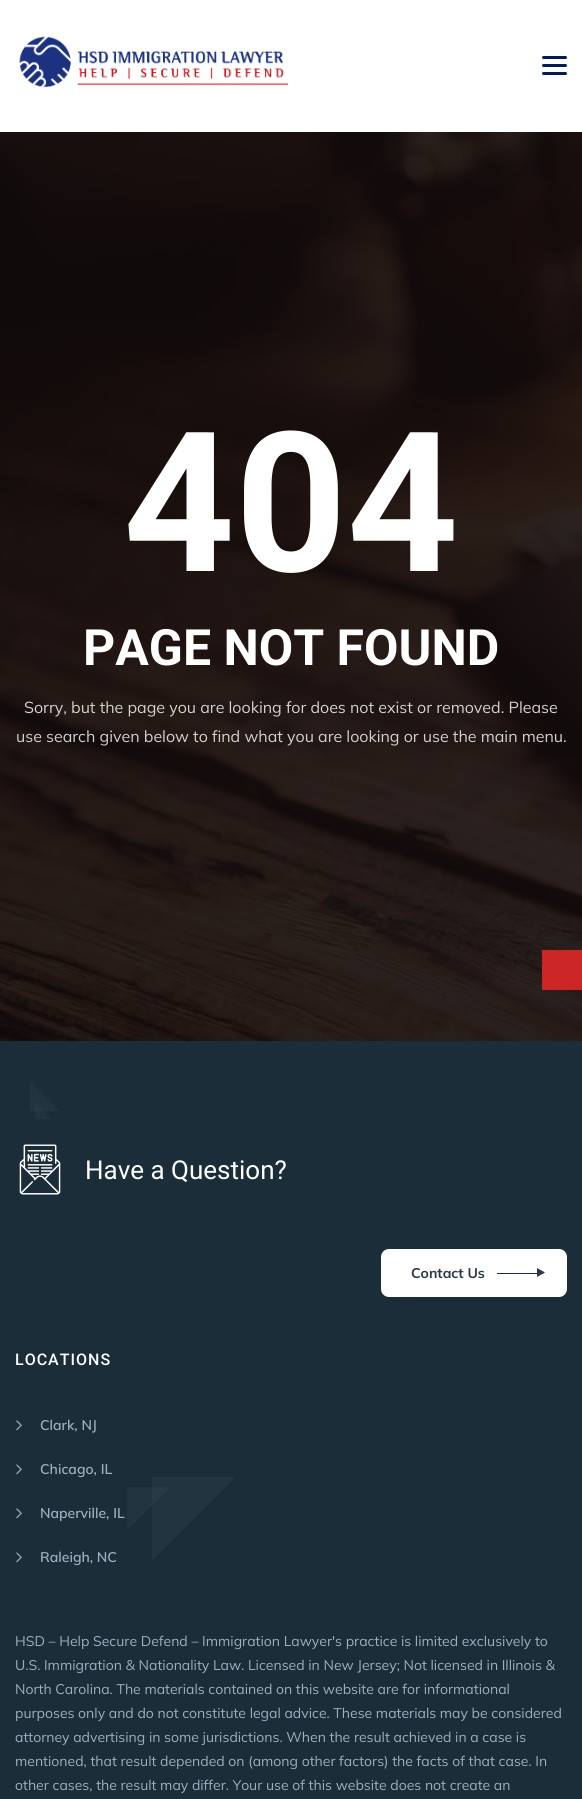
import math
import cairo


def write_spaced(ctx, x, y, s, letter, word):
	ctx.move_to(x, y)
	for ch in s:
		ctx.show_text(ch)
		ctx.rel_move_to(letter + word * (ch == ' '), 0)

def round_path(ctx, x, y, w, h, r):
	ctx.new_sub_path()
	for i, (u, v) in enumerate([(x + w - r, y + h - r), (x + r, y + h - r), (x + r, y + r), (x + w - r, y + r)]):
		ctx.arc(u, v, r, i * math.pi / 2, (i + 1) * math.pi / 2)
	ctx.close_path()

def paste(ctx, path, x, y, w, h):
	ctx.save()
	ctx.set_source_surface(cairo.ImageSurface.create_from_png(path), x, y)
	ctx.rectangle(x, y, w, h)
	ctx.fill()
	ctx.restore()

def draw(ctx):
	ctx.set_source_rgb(1, 1, 1)
	ctx.paint()
	paste(ctx, 'media/1.png', 19, 36, 269, 52)
	ctx.set_source_rgb(0.012, 0.106, 0.306)
	round_path(ctx, 542, 64, 25, 3, 1.5)
	ctx.fill()
	round_path(ctx, 542, 56, 25, 3, 1.5)
	ctx.fill()
	round_path(ctx, 542, 72, 25, 3, 1.5)
	ctx.fill()
	paste(ctx, 'media/2.png', 0, 132, 582, 909)
	ctx.select_font_face('Roboto', cairo.FONT_SLANT_NORMAL, cairo.FONT_WEIGHT_BOLD)
	ctx.set_font_size(195)
	ctx.set_source_rgb(1, 1, 1)
	ctx.move_to(123, 571)
	ctx.show_text('404')
	ctx.set_font_size(50)
	ctx.move_to(83, 665)
	ctx.show_text('PAGE NOT FOUND')
	ctx.select_font_face('Mulish')
	ctx.set_font_size(16)
	ctx.set_source_rgb(0.824, 0.816, 0.816)
	ctx.move_to(24, 713)
	ctx.show_text('Sorry, but the page you are looking for does not exist or removed. Please')
	ctx.move_to(16, 742)
	ctx.show_text('use search given below to find what you are looking or use the main menu.')
	ctx.set_source_rgb(0.102, 0.176, 0.224)
	ctx.rectangle(0, 1041, 582, 758)
	ctx.fill()
	paste(ctx, 'media/3.png', 30, 1082, 205, 478)
	paste(ctx, 'media/4.png', 19, 1144, 42, 51)
	ctx.select_font_face('Roboto')
	ctx.set_font_size(26)
	ctx.set_source_rgb(1, 1, 1)
	ctx.move_to(85, 1179)
	ctx.show_text('Have a Question?')
	round_path(ctx, 381, 1249, 186, 48, 8)
	ctx.fill()
	ctx.select_font_face('Mulish', cairo.FONT_SLANT_NORMAL, cairo.FONT_WEIGHT_BOLD)
	ctx.set_font_size(14)
	ctx.set_source_rgb(0.176, 0.22, 0.271)
	ctx.move_to(411, 1278)
	ctx.show_text('Contact Us')
	ctx.set_source_rgb(0.102, 0.176, 0.224)
	ctx.rectangle(497, 1273, 40, 1)
	ctx.fill()
	paste(ctx, 'media/5.png', 537, 1268, 8, 9)
	ctx.select_font_face('Roboto Medium')
	ctx.set_font_size(16)
	ctx.set_source_rgb(1, 1, 1)
	write_spaced(ctx, 15, 1365, 'LOCATIONS', 1, 0)
	paste(ctx, 'media/6.png', 16, 1420, 6, 11)
	ctx.select_font_face('Mulish SemiBold')
	ctx.set_font_size(14)
	ctx.set_source_rgb(0.624, 0.682, 0.745)
	ctx.move_to(40, 1430)
	ctx.show_text('Clark, NJ')
	paste(ctx, 'media/6.png', 16, 1464, 6, 11)
	ctx.move_to(40, 1474)
	ctx.show_text('Chicago, IL')
	paste(ctx, 'media/6.png', 16, 1508, 6, 11)
	ctx.move_to(40, 1518)
	ctx.show_text('Naperville, IL')
	paste(ctx, 'media/6.png', 16, 1552, 6, 11)
	ctx.move_to(40, 1562)
	ctx.show_text('Raleigh, NC')
	ctx.select_font_face('Mulish')
	for x, y, s in [
		(15, 1646, 'HSD – Help Secure Defend – Immigration Lawyer\'s practice is limited exclusively to'),
		(15, 1670, 'U.S. Immigration & Nationality Law. Licensed in New Jersey; Not licensed in Illinois &'),
		(15, 1694, 'North Carolina. The materials contained on this website are for informational'),
		(15, 1718, 'purposes only and do not constitute legal advice. These materials may be considered'),
		(15, 1742, 'attorney advertising in some jurisdictions. When the result achieved in a case is'),
		(15, 1766, 'mentioned, that result depended on (among other factors) the facts of that case. In'),
		(15, 1790, 'other cases, the result may differ. Your use of this website does not create an'),
	]:
		ctx.move_to(x, y)
		ctx.show_text(s)
	ctx.set_source_rgb(0.8, 0.145, 0.145)
	ctx.rectangle(542, 950, 40, 40)
	ctx.fill()


surface = cairo.ImageSurface(cairo.FORMAT_RGB24, 582, 1799)
ctx = cairo.Context(surface)
options = cairo.FontOptions()
options.set_hint_metrics(cairo.HINT_METRICS_OFF)
options.set_hint_style(cairo.HINT_STYLE_NONE)
ctx.set_font_options(options)
ctx.set_miter_limit(4)
draw(ctx)
surface.write_to_png('image.png')
